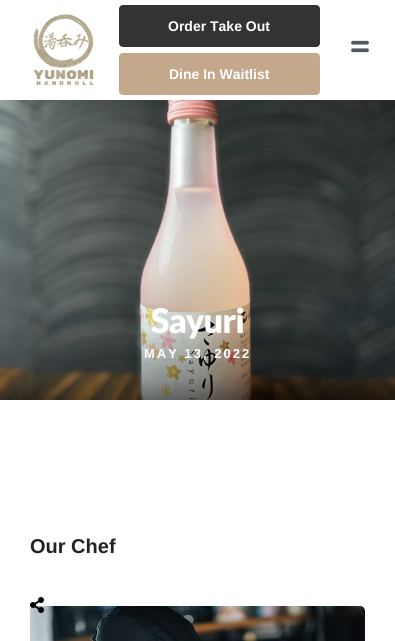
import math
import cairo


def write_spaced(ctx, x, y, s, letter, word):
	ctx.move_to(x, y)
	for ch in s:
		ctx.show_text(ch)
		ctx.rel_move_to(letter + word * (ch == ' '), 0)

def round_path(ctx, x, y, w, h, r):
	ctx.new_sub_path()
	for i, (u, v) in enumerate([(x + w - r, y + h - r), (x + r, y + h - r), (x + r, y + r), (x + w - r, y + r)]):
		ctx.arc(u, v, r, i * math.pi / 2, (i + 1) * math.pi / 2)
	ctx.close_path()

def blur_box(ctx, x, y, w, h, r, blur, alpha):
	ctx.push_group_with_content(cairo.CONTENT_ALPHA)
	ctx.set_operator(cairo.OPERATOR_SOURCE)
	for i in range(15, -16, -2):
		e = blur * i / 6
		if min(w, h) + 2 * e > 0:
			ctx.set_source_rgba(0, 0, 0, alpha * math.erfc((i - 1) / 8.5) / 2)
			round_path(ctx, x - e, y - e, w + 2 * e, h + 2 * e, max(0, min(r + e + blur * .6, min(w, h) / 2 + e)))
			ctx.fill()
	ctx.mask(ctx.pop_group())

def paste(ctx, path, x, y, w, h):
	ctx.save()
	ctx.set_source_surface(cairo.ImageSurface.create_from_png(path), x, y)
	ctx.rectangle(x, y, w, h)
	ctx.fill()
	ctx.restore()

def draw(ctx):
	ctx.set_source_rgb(1, 1, 1)
	ctx.paint()
	paste(ctx, 'media/3.png', 0, 100, 395, 300)
	ctx.save()
	ctx.rectangle(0, 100, 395, 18)
	ctx.clip()
	ctx.set_source_rgb(0, 0, 0)
	blur_box(ctx, 0, 10, 395, 100, 0, 15, 0.07)
	ctx.restore()
	paste(ctx, 'media/1.png', 33, 14, 61, 71)
	ctx.set_source_rgb(0.2, 0.2, 0.2)
	round_path(ctx, 119, 5, 201, 42, 4)
	ctx.fill()
	ctx.select_font_face('Liberation Sans', cairo.FONT_SLANT_NORMAL, cairo.FONT_WEIGHT_BOLD)
	ctx.set_font_size(14)
	ctx.set_source_rgb(1, 1, 1)
	ctx.move_to(168, 31)
	ctx.show_text('Order Take Out')
	ctx.set_source_rgb(0.765, 0.659, 0.545)
	round_path(ctx, 119, 53, 201, 42, 4)
	ctx.fill()
	ctx.set_source_rgb(1, 1, 1)
	ctx.move_to(169, 79)
	ctx.show_text('Dine In Waitlist')
	paste(ctx, 'media/2.png', 351, 40, 18, 13)
	ctx.select_font_face('Lato Black')
	ctx.set_font_size(34)
	write_spaced(ctx, 151, 333, 'Sayuri', -1, 0)
	ctx.select_font_face('Liberation Sans', cairo.FONT_SLANT_NORMAL, cairo.FONT_WEIGHT_BOLD)
	ctx.set_font_size(13)
	write_spaced(ctx, 144, 358, 'MAY 13, 2022', 2, 0)
	ctx.set_font_size(20)
	ctx.set_source_rgb(0.133, 0.133, 0.133)
	ctx.move_to(30, 553)
	ctx.show_text('Our Chef')
	paste(ctx, 'media/4.png', 30, 606, 335, 35)
	paste(ctx, 'media/5.png', 30, 597, 14, 16)


surface = cairo.ImageSurface(cairo.FORMAT_RGB24, 395, 641)
ctx = cairo.Context(surface)
options = cairo.FontOptions()
options.set_hint_metrics(cairo.HINT_METRICS_OFF)
options.set_hint_style(cairo.HINT_STYLE_NONE)
ctx.set_font_options(options)
ctx.set_miter_limit(4)
draw(ctx)
surface.write_to_png('image.png')
